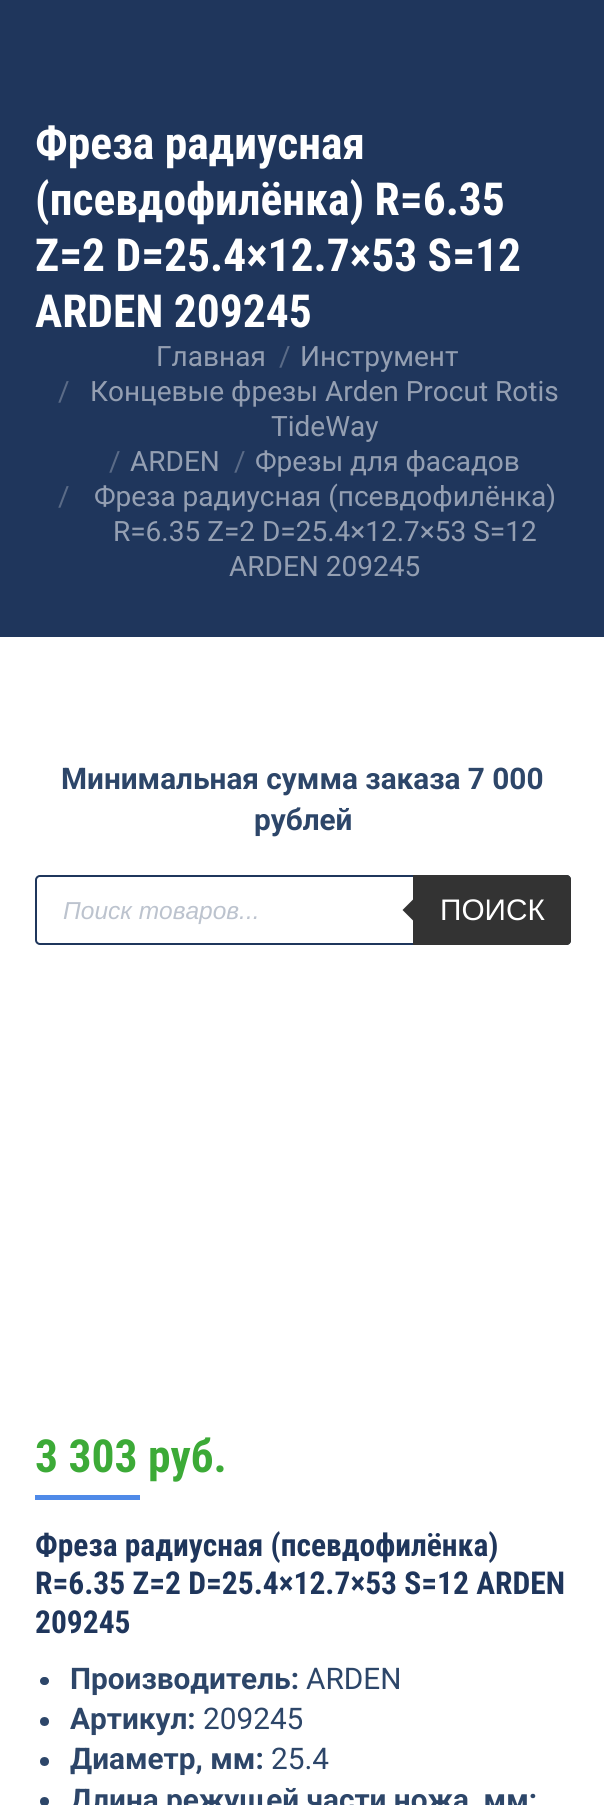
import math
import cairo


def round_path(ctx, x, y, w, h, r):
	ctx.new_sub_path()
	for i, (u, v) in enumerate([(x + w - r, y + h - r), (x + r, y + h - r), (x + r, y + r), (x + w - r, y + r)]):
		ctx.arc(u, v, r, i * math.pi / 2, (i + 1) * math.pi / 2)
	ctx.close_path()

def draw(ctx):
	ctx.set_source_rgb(1, 1, 1)
	ctx.paint()
	ctx.set_source_rgb(0.122, 0.212, 0.361)
	ctx.rectangle(0, 0, 604, 637)
	ctx.fill()
	ctx.select_font_face('Roboto Condensed', cairo.FONT_SLANT_NORMAL, cairo.FONT_WEIGHT_BOLD)
	ctx.set_font_size(45.5)
	ctx.set_source_rgb(1, 1, 1)
	for x, y, s in [
		(35, 159, 'Фреза радиусная'),
		(35, 215, '(псевдофилёнка) R=6.35'),
		(35, 271, 'Z=2 D=25.4×12.7×53 S=12'),
		(35, 327, 'ARDEN 209245'),
	]:
		ctx.move_to(x, y)
		ctx.show_text(s)
	ctx.select_font_face('Roboto')
	ctx.set_font_size(28)
	ctx.set_source_rgb(0.58, 0.624, 0.698)
	ctx.move_to(156, 366)
	ctx.show_text('Главная')
	ctx.set_source_rgb(0.353, 0.42, 0.529)
	ctx.move_to(279, 366)
	ctx.show_text('/')
	ctx.set_source_rgb(0.58, 0.624, 0.698)
	ctx.move_to(300, 366)
	ctx.show_text('Инструмент')
	ctx.set_source_rgb(0.353, 0.42, 0.529)
	ctx.move_to(58, 401)
	ctx.show_text('/')
	ctx.set_source_rgb(0.58, 0.624, 0.698)
	ctx.move_to(90, 401)
	ctx.show_text('Концевые фрезы Arden Procut Rotis')
	ctx.move_to(271, 436)
	ctx.show_text('TideWay')
	ctx.set_source_rgb(0.353, 0.42, 0.529)
	ctx.move_to(109, 471)
	ctx.show_text('/')
	ctx.set_source_rgb(0.58, 0.624, 0.698)
	ctx.move_to(130, 471)
	ctx.show_text('ARDEN')
	ctx.set_source_rgb(0.353, 0.42, 0.529)
	ctx.move_to(234, 471)
	ctx.show_text('/')
	ctx.set_source_rgb(0.58, 0.624, 0.698)
	ctx.move_to(255, 471)
	ctx.show_text('Фрезы для фасадов')
	ctx.set_source_rgb(0.353, 0.42, 0.529)
	ctx.move_to(58, 506)
	ctx.show_text('/')
	ctx.set_source_rgb(0.58, 0.624, 0.698)
	for x, y, s in [
		(94, 506, 'Фреза радиусная (псевдофилёнка)'),
		(113, 541, 'R=6.35 Z=2 D=25.4×12.7×53 S=12'),
		(229, 576, 'ARDEN 209245'),
	]:
		ctx.move_to(x, y)
		ctx.show_text(s)
	ctx.select_font_face('Roboto', cairo.FONT_SLANT_NORMAL, cairo.FONT_WEIGHT_BOLD)
	ctx.set_font_size(29.75)
	ctx.set_source_rgb(0.176, 0.275, 0.412)
	ctx.move_to(61, 789)
	ctx.show_text('Минимальная сумма заказа 7 000')
	ctx.move_to(254, 830)
	ctx.show_text('рублей')
	round_path(ctx, 36, 876, 534, 68, 4)
	ctx.set_source_rgb(0.122, 0.212, 0.361)
	ctx.stroke()
	ctx.select_font_face('Liberation Sans', cairo.FONT_SLANT_ITALIC)
	ctx.set_font_size(24.5)
	ctx.set_source_rgb(0.737, 0.765, 0.808)
	ctx.move_to(63, 919)
	ctx.show_text('Поиск товаров...')
	ctx.set_source_rgb(0.2, 0.2, 0.2)
	ctx.new_path()
	ctx.move_to(413, 875)
	ctx.line_to(567, 875)
	ctx.curve_to(569, 875, 571, 877, 571, 879)
	ctx.line_to(571, 941)
	ctx.curve_to(571, 943, 569, 945, 567, 945)
	ctx.line_to(413, 945)
	ctx.close_path()
	ctx.fill()
	ctx.new_path()
	ctx.move_to(416.5, 896)
	ctx.line_to(416.5, 924)
	ctx.line_to(402.5, 910)
	ctx.close_path()
	ctx.fill()
	ctx.select_font_face('Liberation Sans')
	ctx.set_font_size(29.75)
	ctx.set_source_rgb(1, 1, 1)
	ctx.move_to(440, 920)
	ctx.show_text('ПОИСК')
	ctx.select_font_face('Roboto Condensed', cairo.FONT_SLANT_NORMAL, cairo.FONT_WEIGHT_BOLD)
	ctx.set_font_size(45.5)
	ctx.set_source_rgb(0.235, 0.667, 0.216)
	ctx.move_to(35, 1472)
	ctx.show_text('3 303 руб.')
	ctx.set_source_rgb(0.31, 0.541, 0.91)
	ctx.rectangle(35, 1495, 105, 5)
	ctx.fill()
	ctx.set_font_size(31.5)
	ctx.set_source_rgb(0.122, 0.212, 0.361)
	for x, y, s in [
		(35, 1556, 'Фреза радиусная (псевдофилёнка)'),
		(35, 1594, 'R=6.35 Z=2 D=25.4×12.7×53 S=12 ARDEN'),
		(35, 1633, '209245'),
	]:
		ctx.move_to(x, y)
		ctx.show_text(s)
	ctx.set_source_rgb(0.176, 0.275, 0.412)
	round_path(ctx, 40, 1677, 9, 8, 4)
	ctx.fill()
	ctx.select_font_face('Roboto', cairo.FONT_SLANT_NORMAL, cairo.FONT_WEIGHT_BOLD)
	ctx.set_font_size(29.75)
	ctx.move_to(70, 1689)
	ctx.show_text('Производитель:')
	ctx.select_font_face('Roboto')
	ctx.move_to(306, 1689)
	ctx.show_text('ARDEN')
	ctx.new_path()
	ctx.arc(44.5, 1721.5, 4.5, 0, 2 * math.pi)
	ctx.fill()
	ctx.select_font_face('Roboto', cairo.FONT_SLANT_NORMAL, cairo.FONT_WEIGHT_BOLD)
	ctx.move_to(70, 1729)
	ctx.show_text('Артикул:')
	ctx.select_font_face('Roboto')
	ctx.move_to(203, 1729)
	ctx.show_text('209245')
	ctx.new_path()
	ctx.arc(44.5, 1761.5, 4.5, 0, 2 * math.pi)
	ctx.fill()
	ctx.select_font_face('Roboto', cairo.FONT_SLANT_NORMAL, cairo.FONT_WEIGHT_BOLD)
	ctx.move_to(70, 1769)
	ctx.show_text('Диаметр, мм:')
	ctx.select_font_face('Roboto')
	ctx.move_to(271, 1769)
	ctx.show_text('25.4')
	ctx.new_path()
	ctx.arc(44.5, 1801.5, 4.5, 0, 2 * math.pi)
	ctx.fill()
	ctx.select_font_face('Roboto', cairo.FONT_SLANT_NORMAL, cairo.FONT_WEIGHT_BOLD)
	ctx.move_to(70, 1810)
	ctx.show_text('Длина режущей части ножа, мм:')


surface = cairo.ImageSurface(cairo.FORMAT_RGB24, 604, 1805)
ctx = cairo.Context(surface)
options = cairo.FontOptions()
options.set_hint_metrics(cairo.HINT_METRICS_OFF)
options.set_hint_style(cairo.HINT_STYLE_NONE)
ctx.set_font_options(options)
ctx.set_miter_limit(4)
draw(ctx)
surface.write_to_png('image.png')
